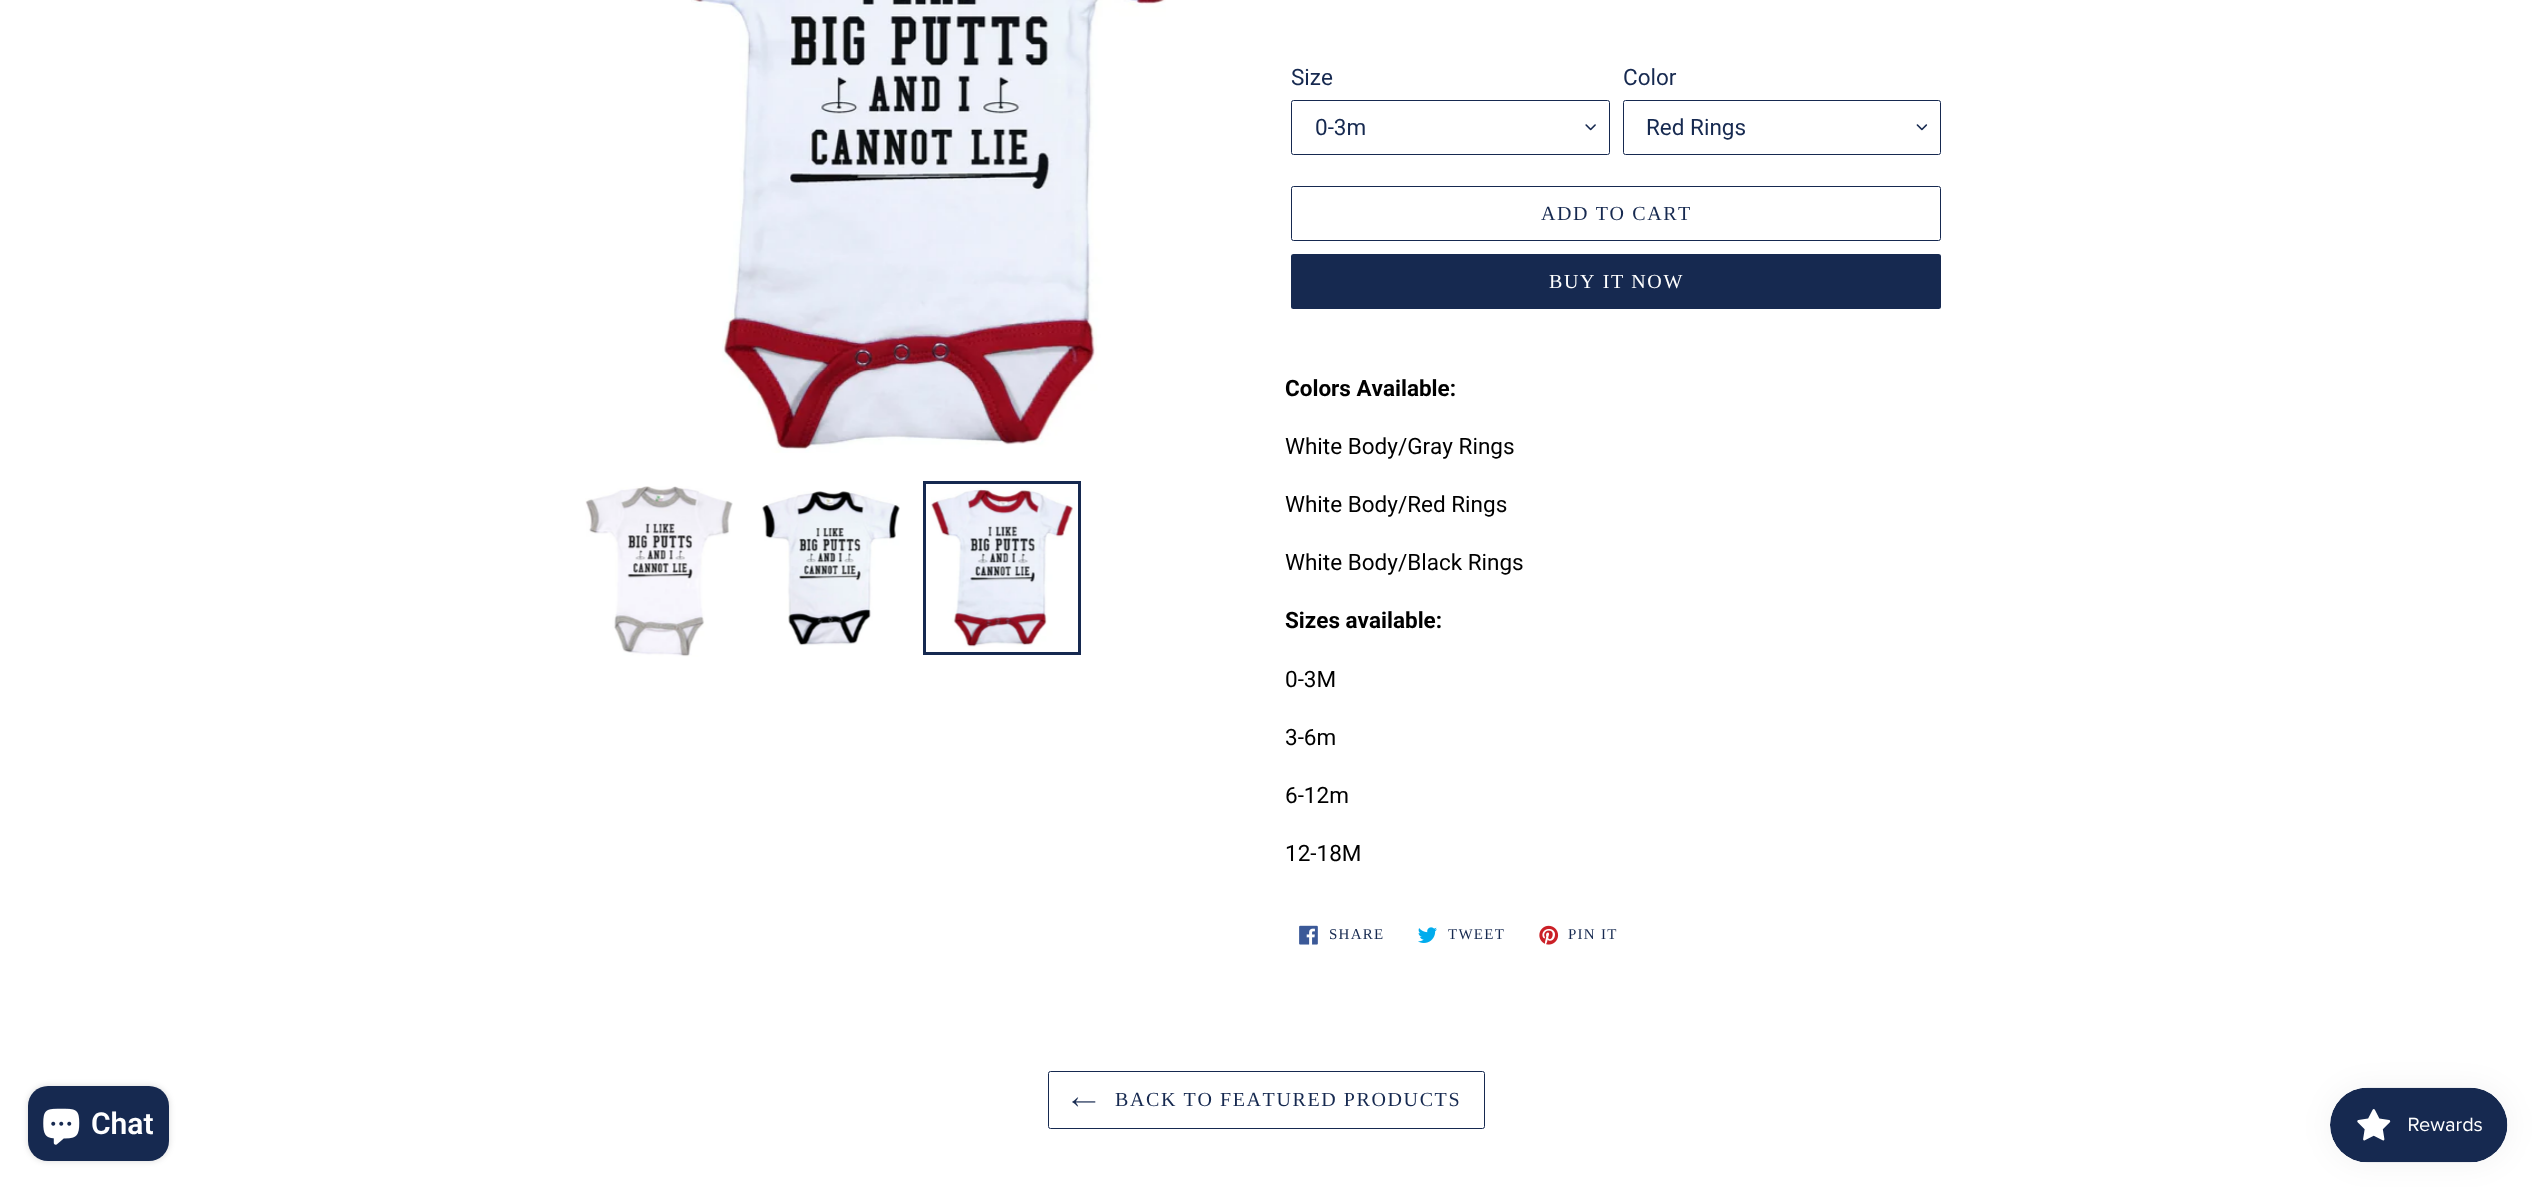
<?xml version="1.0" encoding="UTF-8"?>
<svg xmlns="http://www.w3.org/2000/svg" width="2532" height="1187">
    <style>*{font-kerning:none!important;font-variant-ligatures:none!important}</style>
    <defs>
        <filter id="blur1" x="-50%" y="-200%" width="200%" height="500%"><feGaussianBlur stdDeviation="3"/></filter>
        <filter id="blur2" x="-50%" y="-200%" width="200%" height="500%"><feGaussianBlur stdDeviation="15.5"/></filter>
    </defs>
    <rect width="100%" height="100%" fill="#FFFFFF"/>
    <rect x="28" y="1086" width="141" height="75" rx="20" fill="#000000" fill-opacity="0.15" filter="url(#blur1)"/>
    <rect x="28" y="1086" width="141" height="75" rx="20" fill="#162950"/>
    <image x="43" y="1108" width="37" height="37" href="img_01.png"/>
    <text x="91" y="1134" font-family="Roboto" font-size="30" font-weight="600" fill="#FFFFFF">Chat</text>
    <image x="691" y="0" width="475" height="453" href="img_02.png"/>
    <image x="585" y="486" width="148" height="171" href="img_03.png"/>
    <image x="762" y="491" width="138" height="155" href="img_04.png"/>
    <rect x="924.5" y="482.5" width="155" height="171" fill="none" stroke="#162950" stroke-width="3"/>
    <image x="931" y="488" width="145" height="159" href="img_05.png"/>
    <text x="1291" y="85" font-family="Roboto" font-size="22.5" fill="#162950">Size</text>
    <image x="1585" y="124" width="11" height="7" href="img_06.png"/>
    <rect x="1291.5" y="100.5" width="318" height="54" rx="2" fill="none" stroke="#162950"/>
    <text x="1315" y="135" font-family="Roboto" font-size="22.5" fill="#162950">0-3m</text>
    <text x="1623" y="85" font-family="Roboto" font-size="22.5" fill="#162950">Color</text>
    <image x="1916" y="124" width="12" height="7" href="img_07.png"/>
    <rect x="1623.5" y="100.5" width="317" height="54" rx="2" fill="none" stroke="#162950"/>
    <text x="1646" y="135" font-family="Roboto" font-size="22.5" fill="#162950">Red Rings</text>
    <rect x="1291.5" y="186.5" width="649" height="54" rx="2" fill="none" stroke="#162950"/>
    <text x="1541" y="220" font-family="Liberation Serif" font-size="20" letter-spacing="1.6" fill="#162950">ADD TO CART</text>
    <rect x="1291" y="254" width="650" height="55" rx="2.5" fill="#162950"/>
    <text x="1549" y="288" font-family="Liberation Serif" font-size="20" letter-spacing="1.6" fill="#FFFFFF">BUY IT NOW</text>
    <text x="1285" y="396" font-family="Roboto" font-size="22.5" font-weight="700" fill="#000000">Colors Available:</text>
    <text x="1285" y="454" font-family="Roboto" font-size="22.5" fill="#000000">White Body/Gray Rings</text>
    <text x="1285" y="512" font-family="Roboto" font-size="22.5" fill="#000000">White Body/Red Rings</text>
    <text x="1285" y="570" font-family="Roboto" font-size="22.5" fill="#000000">White Body/Black Rings</text>
    <text x="1285" y="628" font-family="Roboto" font-size="22.5" font-weight="700" fill="#000000">Sizes available:</text>
    <text x="1285" y="687" font-family="Roboto" font-size="22.5" fill="#000000">0-3M</text>
    <text x="1285" y="745" font-family="Roboto" font-size="22.5" fill="#000000">3-6m</text>
    <text x="1285" y="803" font-family="Roboto" font-size="22.5" fill="#000000">6-12m</text>
    <text x="1285" y="861" font-family="Roboto" font-size="22.5" fill="#000000">12-18M</text>
    <image x="1299" y="925" width="19" height="20" href="img_08.png"/>
    <text x="1329" y="939" font-family="Liberation Serif" font-size="15" letter-spacing="1.25" fill="#162950">SHARE</text>
    <image x="1418" y="927" width="19" height="16" href="img_09.png"/>
    <text x="1448" y="939" font-family="Liberation Serif" font-size="15" letter-spacing="1.25" fill="#162950">TWEET</text>
    <image x="1539" y="925" width="20" height="20" href="img_10.png"/>
    <text x="1568" y="939" font-family="Liberation Serif" font-size="15" letter-spacing="1.25" fill="#162950">PIN IT</text>
    <rect x="1048.5" y="1071.5" width="436" height="57" rx="2" fill="none" stroke="#162950"/>
    <image x="1072" y="1097" width="24" height="10" href="img_11.png"/>
    <text x="1115" y="1106" font-family="Liberation Serif" font-size="20" letter-spacing="1.6" fill="#162950">BACK TO FEATURED PRODUCTS</text>
    <rect x="2330" y="1088" width="178" height="75" rx="37.5" fill="#000000" fill-opacity="0.05" filter="url(#blur2)"/>
    <image x="2330" y="1087" width="178" height="76" href="img_12.png"/>
</svg>
